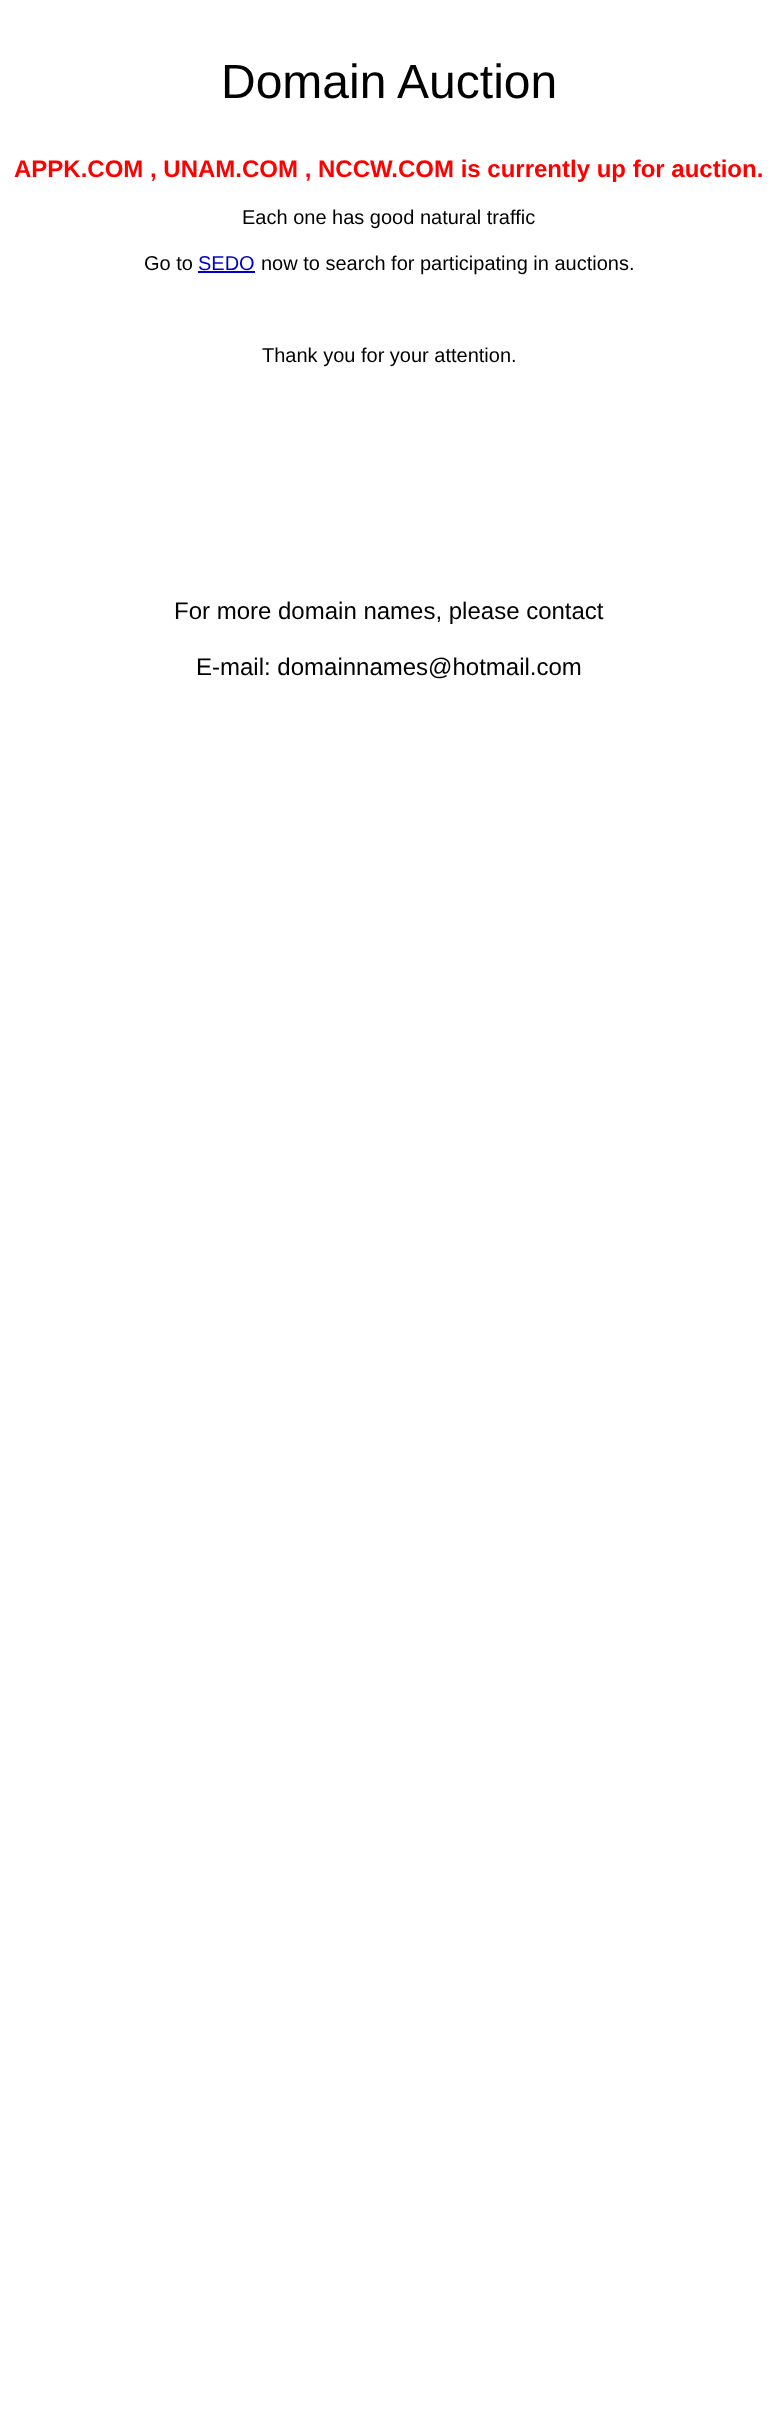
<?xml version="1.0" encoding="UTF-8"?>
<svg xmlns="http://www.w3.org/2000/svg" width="778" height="2424">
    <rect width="100%" height="100%" fill="#FFFFFF"/>
    <text x="221" y="98" font-family="Liberation Sans" font-size="48" fill="#000000">Domain Auction</text>
    <text x="14" y="177" font-family="Liberation Sans" font-size="24" font-weight="700" fill="#FF0000">APPK.COM , UNAM.COM , NCCW.COM is currently up for auction.</text>
    <text x="242" y="224" font-family="Liberation Sans" font-size="20" fill="#000000">Each one has good natural traffic</text>
    <text x="144" y="270" font-family="Liberation Sans" font-size="20" fill="#000000">Go to</text>
    <text x="198" y="270" font-family="Liberation Sans" font-size="20" fill="#0000CC">SEDO</text>
    <rect x="198" y="271" width="57" height="2" fill="#0000CC"/>
    <text x="261" y="270" font-family="Liberation Sans" font-size="20" fill="#000000">now to search for participating in auctions.</text>
    <text x="262" y="362" font-family="Liberation Sans" font-size="20" fill="#000000">Thank you for your attention.</text>
    <text x="174" y="619" font-family="Liberation Sans" font-size="24" fill="#000000">For more domain names, please contact</text>
    <text x="196" y="675" font-family="Liberation Sans" font-size="24" fill="#000000">E-mail: domainnames@hotmail.com</text>
</svg>
